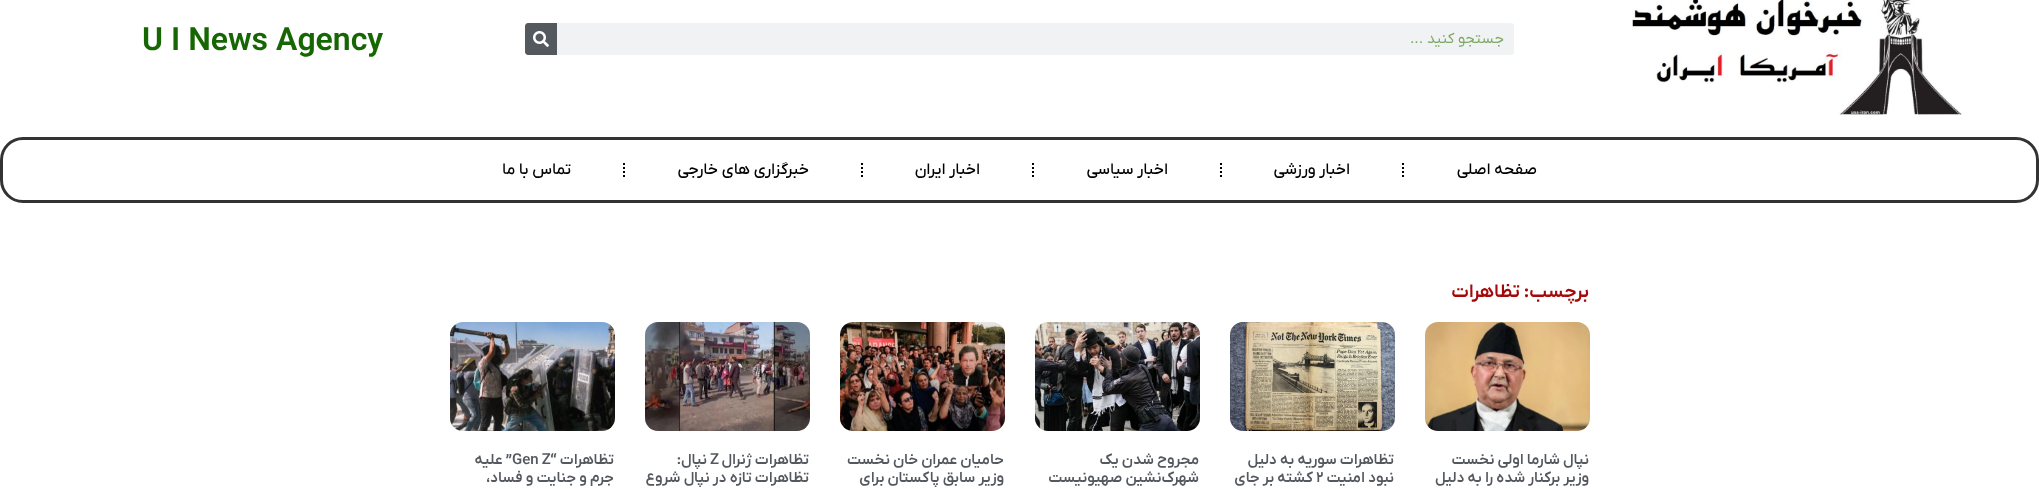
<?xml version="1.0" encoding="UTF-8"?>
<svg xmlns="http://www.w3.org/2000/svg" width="2039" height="489">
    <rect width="100%" height="100%" fill="#FFFFFF"/>
    <image x="1632" y="0" width="330" height="115" href="img_01.png"/>
    <rect x="525" y="23" width="989" height="32" rx="3" fill="#F1F2F3"/>
    <text x="1504" y="43" font-family="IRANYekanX" font-size="15" direction="rtl" fill="#7BA865">جستجو کنید ...</text>
    <path d="M 528 23 H 557 V 55 H 528 C 526.5 55 525 53.5 525 52 V 26 C 525 24.5 526.5 23 528 23 Z" fill="#54595F"/>
    <image x="533" y="31" width="16" height="16" href="img_02.png"/>
    <text x="142" y="50" font-family="Roboto" font-size="32" font-weight="600" fill="#166703">U I News Agency</text>
    <rect x="1.5" y="138.5" width="2036" height="63" rx="21.5" fill="none" stroke="#333333" stroke-width="3"/>
    <text x="1537" y="174" font-family="IRANYekanX" font-size="16" font-weight="500" direction="rtl" fill="#000000">صفحه اصلی</text>
    <path d="M 1403 163 V 165 M 1403 167 V 169 M 1403 171 V 173 M 1403 175 V 177" fill="none" stroke="#000000" stroke-width="2"/>
    <text x="1350" y="174" font-family="IRANYekanX" font-size="16" font-weight="500" direction="rtl" fill="#000000">اخبار ورزشی</text>
    <path d="M 1221 163 V 165 M 1221 167 V 169 M 1221 171 V 173 M 1221 175 V 177" fill="none" stroke="#000000" stroke-width="2"/>
    <text x="1168" y="174" font-family="IRANYekanX" font-size="16" font-weight="500" direction="rtl" fill="#000000">اخبار سیاسی</text>
    <path d="M 1033 163 V 165 M 1033 167 V 169 M 1033 171 V 173 M 1033 175 V 177" fill="none" stroke="#000000" stroke-width="2"/>
    <text x="980" y="174" font-family="IRANYekanX" font-size="16" font-weight="500" direction="rtl" fill="#000000">اخبار ایران</text>
    <path d="M 862 163 V 165 M 862 167 V 169 M 862 171 V 173 M 862 175 V 177" fill="none" stroke="#000000" stroke-width="2"/>
    <text x="809" y="174" font-family="IRANYekanX" font-size="16" font-weight="500" direction="rtl" fill="#000000">خبرگزاری های خارجی</text>
    <path d="M 624 163 V 165 M 624 167 V 169 M 624 171 V 173 M 624 175 V 177" fill="none" stroke="#000000" stroke-width="2"/>
    <text x="571" y="174" font-family="IRANYekanX" font-size="16" font-weight="500" direction="rtl" fill="#000000">تماس با ما</text>
    <text x="1589" y="297" font-family="IRANYekanX" font-size="19" font-weight="600" direction="rtl" fill="#A40808">برچسب: تظاهرات</text>
    <image x="1425" y="322" width="165" height="109" href="img_03.png"/>
    <text font-family="IRANYekanX" font-size="15" font-weight="600" direction="rtl" fill="#54595F">
        <tspan x="1589" y="464">نپال شارما اولی نخست</tspan>
        <tspan x="1589" y="482">وزیر برکنار شده را به دلیل</tspan>
    </text>
    <image x="1230" y="322" width="165" height="109" href="img_04.png"/>
    <text font-family="IRANYekanX" font-size="15" font-weight="600" direction="rtl" fill="#54595F">
        <tspan x="1394" y="464">تظاهرات سوریه به دلیل</tspan>
        <tspan x="1394" y="482">نبود امنیت</tspan>
    </text>
    <text x="1316" y="482" font-family="IRANYekanX" font-size="15" font-weight="600" fill="#54595F">۲</text>
    <text x="1313" y="482" font-family="IRANYekanX" font-size="15" font-weight="600" direction="rtl" fill="#54595F">کشته بر جای</text>
    <image x="1035" y="322" width="165" height="109" href="img_05.png"/>
    <text font-family="IRANYekanX" font-size="15" font-weight="600" direction="rtl" fill="#54595F">
        <tspan x="1199" y="464">مجروح شدن یک</tspan>
        <tspan x="1199" y="482">شهرک‌نشین صهیونیست</tspan>
    </text>
    <image x="840" y="322" width="165" height="109" href="img_06.png"/>
    <text font-family="IRANYekanX" font-size="15" font-weight="600" direction="rtl" fill="#54595F">
        <tspan x="1004" y="464">حامیان عمران خان نخست</tspan>
        <tspan x="1004" y="482">وزیر سابق پاکستان برای</tspan>
    </text>
    <image x="645" y="322" width="165" height="109" href="img_07.png"/>
    <text x="809" y="464" font-family="IRANYekanX" font-size="15" font-weight="600" direction="rtl" fill="#54595F">تظاهرات ژنرال</text>
    <text x="710" y="464" font-family="IRANYekanX" font-size="15" font-weight="600" fill="#54595F">Z</text>
    <text x="707" y="464" font-family="IRANYekanX" font-size="15" font-weight="600" direction="rtl" fill="#54595F">نپال:</text>
    <text x="809" y="482" font-family="IRANYekanX" font-size="15" font-weight="600" direction="rtl" fill="#54595F">تظاهرات تازه در نپال شروع</text>
    <image x="450" y="322" width="165" height="109" href="img_08.png"/>
    <text x="614" y="464" font-family="IRANYekanX" font-size="15" font-weight="600" direction="rtl" fill="#54595F">تظاهرات “</text>
    <text x="512" y="464" font-family="IRANYekanX" font-size="15" font-weight="600" fill="#54595F">Gen Z</text>
    <text x="512" y="464" font-family="IRANYekanX" font-size="15" font-weight="600" direction="rtl" fill="#54595F">” علیه</text>
    <text x="614" y="482" font-family="IRANYekanX" font-size="15" font-weight="600" direction="rtl" fill="#54595F">جرم و جنایت و فساد،</text>
</svg>
